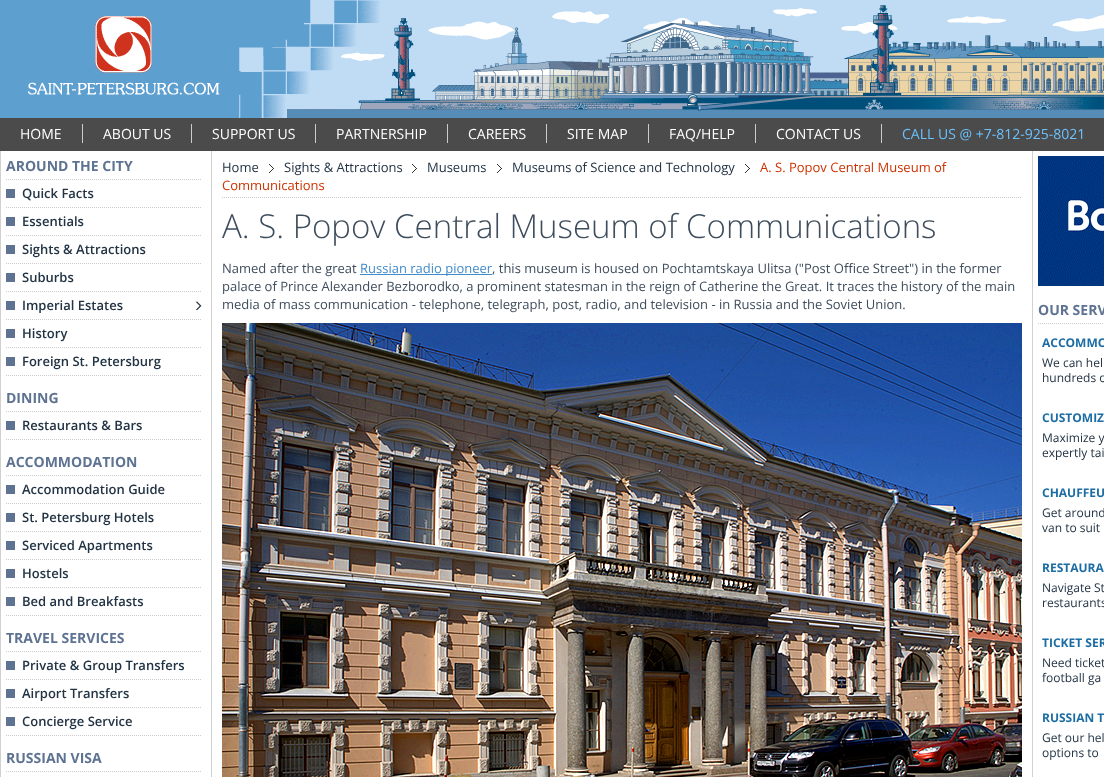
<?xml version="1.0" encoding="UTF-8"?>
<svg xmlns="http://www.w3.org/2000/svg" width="1104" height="777">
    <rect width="100%" height="100%" fill="#4B4B4B"/>
    <image x="0" y="0" width="1104" height="118" href="img_01.png"/>
    <text x="20" y="139" font-family="Open Sans" font-size="14" fill="#FFFFFF">HOME</text>
    <rect x="82" y="124" width="1" height="19" fill="#CCCCCC"/>
    <text x="103" y="139" font-family="Open Sans" font-size="14" fill="#FFFFFF">ABOUT US</text>
    <rect x="191" y="124" width="1" height="19" fill="#CCCCCC"/>
    <text x="212" y="139" font-family="Open Sans" font-size="14" fill="#FFFFFF">SUPPORT US</text>
    <rect x="315" y="124" width="1" height="19" fill="#CCCCCC"/>
    <text x="336" y="139" font-family="Open Sans" font-size="14" fill="#FFFFFF">PARTNERSHIP</text>
    <rect x="447" y="124" width="1" height="19" fill="#CCCCCC"/>
    <text x="468" y="139" font-family="Open Sans" font-size="14" fill="#FFFFFF">CAREERS</text>
    <rect x="546" y="124" width="1" height="19" fill="#CCCCCC"/>
    <text x="567" y="139" font-family="Open Sans" font-size="14" fill="#FFFFFF">SITE MAP</text>
    <rect x="648" y="124" width="1" height="19" fill="#CCCCCC"/>
    <text x="669" y="139" font-family="Open Sans" font-size="14" fill="#FFFFFF">FAQ/HELP</text>
    <rect x="755" y="124" width="1" height="19" fill="#CCCCCC"/>
    <text x="776" y="139" font-family="Open Sans" font-size="14" fill="#FFFFFF">CONTACT US</text>
    <rect x="881" y="124" width="1" height="19" fill="#CCCCCC"/>
    <text x="902" y="139" font-family="Open Sans" font-size="14" fill="#6CC2FD">CALL US @ +7-812-925-8021</text>
    <rect x="1" y="151" width="1103" height="626" fill="#FFFFFF"/>
    <rect x="0" y="151" width="1" height="626" fill="#D0D0D0"/>
    <path d="M 6 179.5 H 201" fill="none" stroke="#CCCCCC" stroke-dasharray="1 1"/>
    <text x="6" y="171" font-family="Open Sans" font-size="14" font-weight="700" fill="#5E7392">AROUND THE CITY</text>
    <path d="M 6 207.5 H 201" fill="none" stroke="#CCCCCC" stroke-dasharray="1 1"/>
    <rect x="6" y="189" width="9" height="9" fill="#5E7392"/>
    <text x="22" y="198" font-family="Open Sans" font-size="13" font-weight="600" fill="#223344">Quick Facts</text>
    <path d="M 6 235.5 H 201" fill="none" stroke="#CCCCCC" stroke-dasharray="1 1"/>
    <rect x="6" y="217" width="9" height="9" fill="#5E7392"/>
    <text x="22" y="226" font-family="Open Sans" font-size="13" font-weight="600" fill="#223344">Essentials</text>
    <path d="M 6 263.5 H 201" fill="none" stroke="#CCCCCC" stroke-dasharray="1 1"/>
    <rect x="6" y="245" width="9" height="9" fill="#5E7392"/>
    <text x="22" y="254" font-family="Open Sans" font-size="13" font-weight="600" fill="#223344">Sights &amp; Attractions</text>
    <path d="M 6 291.5 H 201" fill="none" stroke="#CCCCCC" stroke-dasharray="1 1"/>
    <rect x="6" y="273" width="9" height="9" fill="#5E7392"/>
    <text x="22" y="282" font-family="Open Sans" font-size="13" font-weight="600" fill="#223344">Suburbs</text>
    <path d="M 6 319.5 H 201" fill="none" stroke="#CCCCCC" stroke-dasharray="1 1"/>
    <rect x="6" y="301" width="9" height="9" fill="#5E7392"/>
    <text x="22" y="310" font-family="Open Sans" font-size="13" font-weight="600" fill="#223344">Imperial Estates</text>
    <image x="196" y="301" width="6" height="10" href="img_02.png"/>
    <path d="M 6 347.5 H 201" fill="none" stroke="#CCCCCC" stroke-dasharray="1 1"/>
    <rect x="6" y="329" width="9" height="9" fill="#5E7392"/>
    <text x="22" y="338" font-family="Open Sans" font-size="13" font-weight="600" fill="#223344">History</text>
    <path d="M 6 375.5 H 201" fill="none" stroke="#CCCCCC" stroke-dasharray="1 1"/>
    <rect x="6" y="357" width="9" height="9" fill="#5E7392"/>
    <text x="22" y="366" font-family="Open Sans" font-size="13" font-weight="600" fill="#223344">Foreign St. Petersburg</text>
    <path d="M 6 411.5 H 201" fill="none" stroke="#CCCCCC" stroke-dasharray="1 1"/>
    <text x="6" y="403" font-family="Open Sans" font-size="14" font-weight="700" fill="#5E7392">DINING</text>
    <path d="M 6 439.5 H 201" fill="none" stroke="#CCCCCC" stroke-dasharray="1 1"/>
    <rect x="6" y="421" width="9" height="9" fill="#5E7392"/>
    <text x="22" y="430" font-family="Open Sans" font-size="13" font-weight="600" fill="#223344">Restaurants &amp; Bars</text>
    <path d="M 6 475.5 H 201" fill="none" stroke="#CCCCCC" stroke-dasharray="1 1"/>
    <text x="6" y="467" font-family="Open Sans" font-size="14" font-weight="700" fill="#5E7392">ACCOMMODATION</text>
    <path d="M 6 503.5 H 201" fill="none" stroke="#CCCCCC" stroke-dasharray="1 1"/>
    <rect x="6" y="485" width="9" height="9" fill="#5E7392"/>
    <text x="22" y="494" font-family="Open Sans" font-size="13" font-weight="600" fill="#223344">Accommodation Guide</text>
    <path d="M 6 531.5 H 201" fill="none" stroke="#CCCCCC" stroke-dasharray="1 1"/>
    <rect x="6" y="513" width="9" height="9" fill="#5E7392"/>
    <text x="22" y="522" font-family="Open Sans" font-size="13" font-weight="600" fill="#223344">St. Petersburg Hotels</text>
    <path d="M 6 559.5 H 201" fill="none" stroke="#CCCCCC" stroke-dasharray="1 1"/>
    <rect x="6" y="541" width="9" height="9" fill="#5E7392"/>
    <text x="22" y="550" font-family="Open Sans" font-size="13" font-weight="600" fill="#223344">Serviced Apartments</text>
    <path d="M 6 587.5 H 201" fill="none" stroke="#CCCCCC" stroke-dasharray="1 1"/>
    <rect x="6" y="569" width="9" height="9" fill="#5E7392"/>
    <text x="22" y="578" font-family="Open Sans" font-size="13" font-weight="600" fill="#223344">Hostels</text>
    <path d="M 6 615.5 H 201" fill="none" stroke="#CCCCCC" stroke-dasharray="1 1"/>
    <rect x="6" y="597" width="9" height="9" fill="#5E7392"/>
    <text x="22" y="606" font-family="Open Sans" font-size="13" font-weight="600" fill="#223344">Bed and Breakfasts</text>
    <path d="M 6 651.5 H 201" fill="none" stroke="#CCCCCC" stroke-dasharray="1 1"/>
    <text x="6" y="643" font-family="Open Sans" font-size="14" font-weight="700" fill="#5E7392">TRAVEL SERVICES</text>
    <path d="M 6 679.5 H 201" fill="none" stroke="#CCCCCC" stroke-dasharray="1 1"/>
    <rect x="6" y="661" width="9" height="9" fill="#5E7392"/>
    <text x="22" y="670" font-family="Open Sans" font-size="13" font-weight="600" fill="#223344">Private &amp; Group Transfers</text>
    <path d="M 6 707.5 H 201" fill="none" stroke="#CCCCCC" stroke-dasharray="1 1"/>
    <rect x="6" y="689" width="9" height="9" fill="#5E7392"/>
    <text x="22" y="698" font-family="Open Sans" font-size="13" font-weight="600" fill="#223344">Airport Transfers</text>
    <path d="M 6 735.5 H 201" fill="none" stroke="#CCCCCC" stroke-dasharray="1 1"/>
    <rect x="6" y="717" width="9" height="9" fill="#5E7392"/>
    <text x="22" y="726" font-family="Open Sans" font-size="13" font-weight="600" fill="#223344">Concierge Service</text>
    <path d="M 6 771.5 H 201" fill="none" stroke="#CCCCCC" stroke-dasharray="1 1"/>
    <text x="6" y="763" font-family="Open Sans" font-size="14" font-weight="700" fill="#5E7392">RUSSIAN VISA</text>
    <rect x="1032" y="151" width="1" height="626" fill="#D0D0D0"/>
    <rect x="211" y="151" width="1" height="626" fill="#D0D0D0"/>
    <path d="M 222 197.5 H 1022" fill="none" stroke="#CCCCCC" stroke-dasharray="1 1"/>
    <text x="222" y="172" font-family="Open Sans" font-size="13" fill="#223344">Home</text>
    <image x="269" y="164" width="5" height="9" href="img_03.png"/>
    <text x="284" y="172" font-family="Open Sans" font-size="13" fill="#223344">Sights &amp; Attractions</text>
    <image x="412" y="164" width="5" height="9" href="img_03.png"/>
    <text x="427" y="172" font-family="Open Sans" font-size="13" fill="#223344">Museums</text>
    <image x="497" y="164" width="5" height="9" href="img_03.png"/>
    <text x="512" y="172" font-family="Open Sans" font-size="13" fill="#223344">Museums of Science and Technology</text>
    <image x="745" y="164" width="5" height="9" href="img_03.png"/>
    <text x="760" y="172" font-family="Open Sans" font-size="13" fill="#CC3300">A. S. Popov Central Museum of</text>
    <text x="222" y="190" font-family="Open Sans" font-size="13" fill="#CC3300">Communications</text>
    <text x="222" y="238" font-family="Open Sans" font-size="33" font-weight="300" fill="#3E4D5C">A. S. Popov Central Museum of Communications</text>
    <text x="222" y="273" font-family="Open Sans" font-size="13" fill="#3E4D5C">Named after the great</text>
    <rect x="360" y="274" width="132" height="1" fill="#428BCA"/>
    <text x="360" y="273" font-family="Open Sans" font-size="13" fill="#428BCA">Russian radio pioneer</text>
    <text x="492" y="273" font-family="Open Sans" font-size="13" fill="#3E4D5C">, this museum is housed on Pochtamtskaya Ulitsa ("Post Office Street") in the former</text>
    <text font-family="Open Sans" font-size="13" fill="#3E4D5C">
        <tspan x="222" y="291">palace of Prince Alexander Bezborodko, a prominent statesman in the reign of Catherine the Great. It traces the history of the main</tspan>
        <tspan x="222" y="309">media of mass communication - telephone, telegraph, post, radio, and television - in Russia and the Soviet Union.</tspan>
    </text>
    <image x="222" y="323" width="800" height="454" href="img_04.png"/>
    <image x="1038" y="156" width="66" height="130" href="img_05.png"/>
    <path d="M 1038 323.5 H 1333" fill="none" stroke="#CCCCCC" stroke-dasharray="1 1"/>
    <text x="1038" y="315" font-family="Open Sans" font-size="14" font-weight="700" fill="#5E7392">OUR SERV</text>
    <text x="1042" y="347" font-family="Open Sans" font-size="12" font-weight="700" fill="#1C6DA4">ACCOMMO</text>
    <text font-family="Open Sans" font-size="12" fill="#223344">
        <tspan x="1042" y="367">We can hel</tspan>
        <tspan x="1042" y="382">hundreds o</tspan>
    </text>
    <text x="1042" y="422" font-family="Open Sans" font-size="12" font-weight="700" fill="#1C6DA4">CUSTOMIZ</text>
    <text font-family="Open Sans" font-size="12" fill="#223344">
        <tspan x="1042" y="442">Maximize y</tspan>
        <tspan x="1042" y="457">expertly tai</tspan>
    </text>
    <text x="1042" y="497" font-family="Open Sans" font-size="12" font-weight="700" fill="#1C6DA4">CHAUFFEU</text>
    <text font-family="Open Sans" font-size="12" fill="#223344">
        <tspan x="1042" y="517">Get around</tspan>
        <tspan x="1042" y="532">van to suit</tspan>
    </text>
    <text x="1042" y="572" font-family="Open Sans" font-size="12" font-weight="700" fill="#1C6DA4">RESTAURA</text>
    <text font-family="Open Sans" font-size="12" fill="#223344">
        <tspan x="1042" y="592">Navigate St</tspan>
        <tspan x="1042" y="607">restaurants</tspan>
    </text>
    <text x="1042" y="647" font-family="Open Sans" font-size="12" font-weight="700" fill="#1C6DA4">TICKET SER</text>
    <text font-family="Open Sans" font-size="12" fill="#223344">
        <tspan x="1042" y="667">Need ticket</tspan>
        <tspan x="1042" y="682">football ga</tspan>
    </text>
    <text x="1042" y="722" font-family="Open Sans" font-size="12" font-weight="700" fill="#1C6DA4">RUSSIAN T</text>
    <text font-family="Open Sans" font-size="12" fill="#223344">
        <tspan x="1042" y="742">Get our hel</tspan>
        <tspan x="1042" y="757">options to</tspan>
    </text>
</svg>
